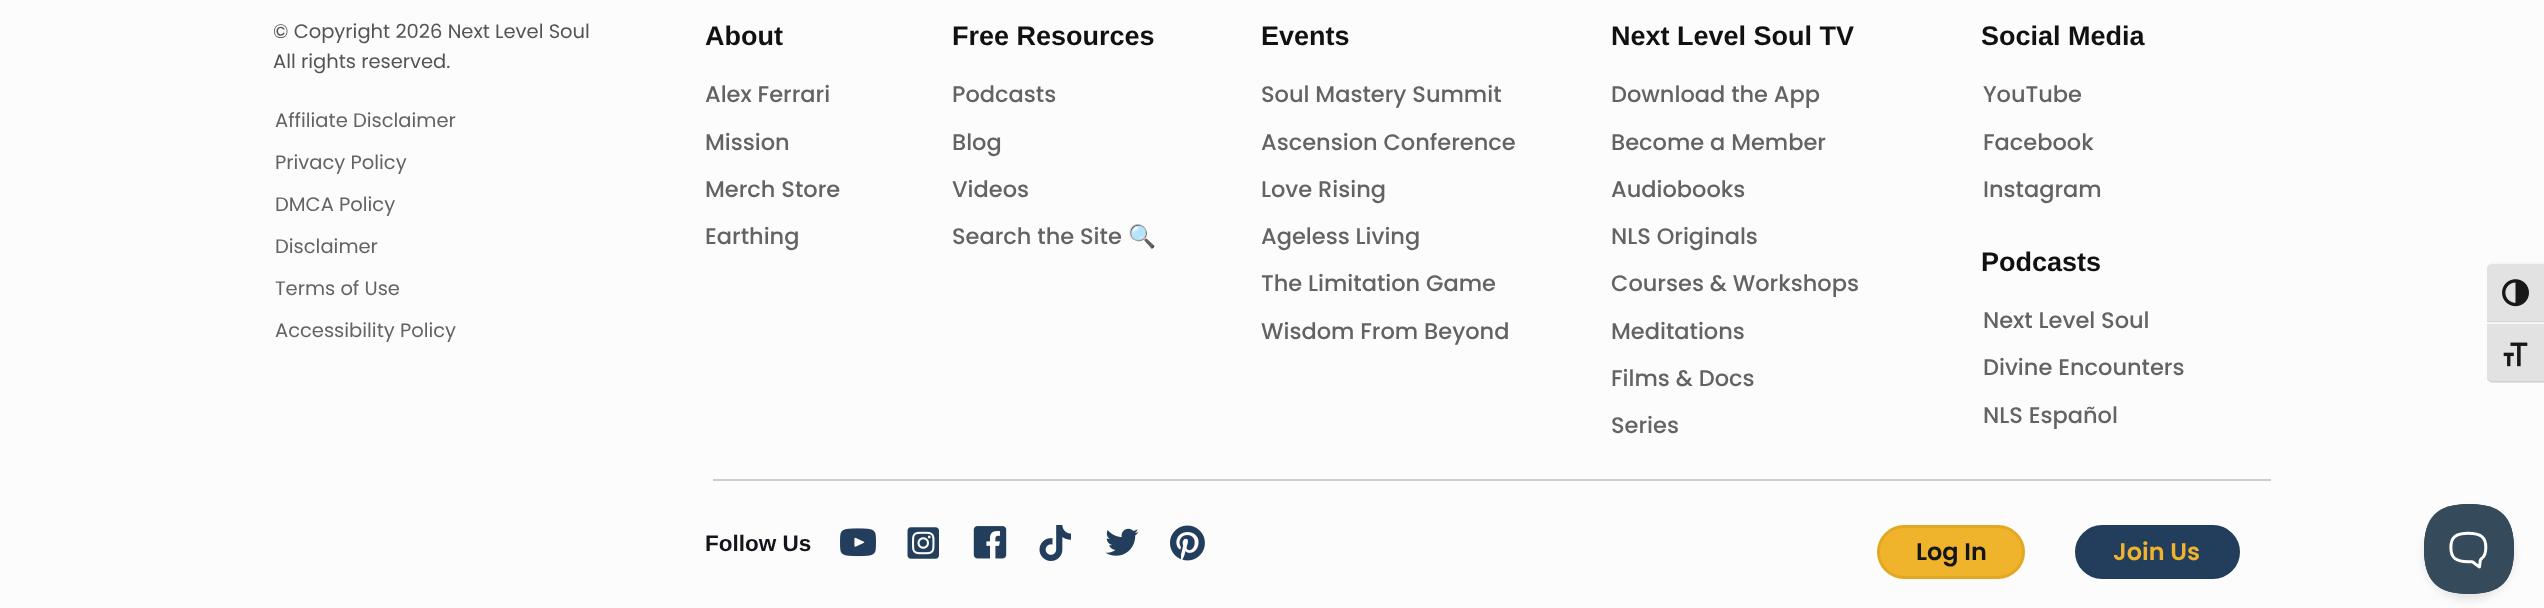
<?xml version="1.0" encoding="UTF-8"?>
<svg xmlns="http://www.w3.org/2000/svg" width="2544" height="608">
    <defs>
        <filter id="blur1" x="-50%" y="-200%" width="200%" height="500%"><feGaussianBlur stdDeviation="5"/></filter>
    </defs>
    <rect width="100%" height="100%" fill="#FCFCFC"/>
    <text font-family="Poppins" font-size="19.5" fill="#545454">
        <tspan x="273" y="38">© Copyright 2026 Next Level Soul</tspan>
        <tspan x="273" y="68">All rights reserved.</tspan>
    </text>
    <text x="275" y="127" font-family="Poppins" font-size="19.5" fill="#636363">Affiliate Disclaimer</text>
    <text x="275" y="169" font-family="Poppins" font-size="19.5" fill="#636363">Privacy Policy</text>
    <text x="275" y="211" font-family="Poppins" font-size="19.5" fill="#636363">DMCA Policy</text>
    <text x="275" y="253" font-family="Poppins" font-size="19.5" fill="#636363">Disclaimer</text>
    <text x="275" y="295" font-family="Poppins" font-size="19.5" fill="#636363">Terms of Use</text>
    <text x="275" y="337" font-family="Poppins" font-size="19.5" fill="#636363">Accessibility Policy</text>
    <text x="705" y="45" font-family="Liberation Sans" font-size="27" font-weight="700" fill="#111111">About</text>
    <text x="705" y="102" font-family="Poppins" font-size="22.5" font-weight="500" fill="#636363">Alex Ferrari</text>
    <text x="705" y="150" font-family="Poppins" font-size="22.5" font-weight="500" fill="#636363">Mission</text>
    <text x="705" y="197" font-family="Poppins" font-size="22.5" font-weight="500" fill="#636363">Merch Store</text>
    <text x="705" y="244" font-family="Poppins" font-size="22.5" font-weight="500" fill="#636363">Earthing</text>
    <text x="952" y="45" font-family="Liberation Sans" font-size="27" font-weight="700" fill="#111111">Free Resources</text>
    <text x="952" y="102" font-family="Poppins" font-size="22.5" font-weight="500" fill="#636363">Podcasts</text>
    <text x="952" y="150" font-family="Poppins" font-size="22.5" font-weight="500" fill="#636363">Blog</text>
    <text x="952" y="197" font-family="Poppins" font-size="22.5" font-weight="500" fill="#636363">Videos</text>
    <text x="952" y="244" font-family="Poppins" font-size="22.5" font-weight="500" fill="#636363">Search the Site</text>
    <text x="1128" y="244" font-family="Noto Color Emoji" font-size="22.5" fill="#636363">🔍</text>
    <text x="1261" y="45" font-family="Liberation Sans" font-size="27" font-weight="700" fill="#111111">Events</text>
    <text x="1261" y="102" font-family="Poppins" font-size="22.5" font-weight="500" fill="#636363">Soul Mastery Summit</text>
    <text x="1261" y="150" font-family="Poppins" font-size="22.5" font-weight="500" fill="#636363">Ascension Conference</text>
    <text x="1261" y="197" font-family="Poppins" font-size="22.5" font-weight="500" fill="#636363">Love Rising</text>
    <text x="1261" y="244" font-family="Poppins" font-size="22.5" font-weight="500" fill="#636363">Ageless Living</text>
    <text x="1261" y="291" font-family="Poppins" font-size="22.5" font-weight="500" fill="#636363">The Limitation Game</text>
    <text x="1261" y="339" font-family="Poppins" font-size="22.5" font-weight="500" fill="#636363">Wisdom From Beyond</text>
    <text x="1611" y="45" font-family="Liberation Sans" font-size="27" font-weight="700" fill="#111111">Next Level Soul TV</text>
    <text x="1611" y="102" font-family="Poppins" font-size="22.5" font-weight="500" fill="#636363">Download the App</text>
    <text x="1611" y="150" font-family="Poppins" font-size="22.5" font-weight="500" fill="#636363">Become a Member</text>
    <text x="1611" y="197" font-family="Poppins" font-size="22.5" font-weight="500" fill="#636363">Audiobooks</text>
    <text x="1611" y="244" font-family="Poppins" font-size="22.5" font-weight="500" fill="#636363">NLS Originals</text>
    <text x="1611" y="291" font-family="Poppins" font-size="22.5" font-weight="500" fill="#636363">Courses &amp; Workshops</text>
    <text x="1611" y="339" font-family="Poppins" font-size="22.5" font-weight="500" fill="#636363">Meditations</text>
    <text x="1611" y="386" font-family="Poppins" font-size="22.5" font-weight="500" fill="#636363">Films &amp; Docs</text>
    <text x="1611" y="433" font-family="Poppins" font-size="22.5" font-weight="500" fill="#636363">Series</text>
    <text x="1981" y="45" font-family="Liberation Sans" font-size="27" font-weight="700" fill="#111111">Social Media</text>
    <text x="1983" y="102" font-family="Poppins" font-size="22.5" font-weight="500" fill="#636363">YouTube</text>
    <text x="1983" y="150" font-family="Poppins" font-size="22.5" font-weight="500" fill="#636363">Facebook</text>
    <text x="1983" y="197" font-family="Poppins" font-size="22.5" font-weight="500" fill="#636363">Instagram</text>
    <text x="1981" y="271" font-family="Liberation Sans" font-size="27" font-weight="700" fill="#111111">Podcasts</text>
    <text x="1983" y="328" font-family="Poppins" font-size="22.5" font-weight="500" fill="#636363">Next Level Soul</text>
    <text x="1983" y="375" font-family="Poppins" font-size="22.5" font-weight="500" fill="#636363">Divine Encounters</text>
    <text x="1983" y="423" font-family="Poppins" font-size="22.5" font-weight="500" fill="#636363">NLS Español</text>
    <rect x="713" y="479" width="1558" height="2" fill="#CCCCCC"/>
    <text x="705" y="551" font-family="Liberation Sans" font-size="22.5" font-weight="700" fill="#14151A">Follow Us</text>
    <image x="840" y="528" width="36" height="29" href="img_01.png"/>
    <image x="907" y="527" width="32" height="32" href="img_02.png"/>
    <image x="973" y="526" width="34" height="33" href="img_03.png"/>
    <image x="1039" y="525" width="32" height="36" href="img_04.png"/>
    <image x="1105" y="528" width="34" height="28" href="img_05.png"/>
    <image x="1170" y="525" width="35" height="36" href="img_06.png"/>
    <rect x="1878.5" y="526.5" width="145" height="51" rx="25.5" fill="#EFB42B" stroke="#E3A81F" stroke-width="3"/>
    <text x="1916" y="560" font-family="Poppins" font-size="24" font-weight="600" fill="#14151A">Log In</text>
    <rect x="2076.5" y="526.5" width="162" height="51" rx="25.5" fill="#233E5C" stroke="#233E5C" stroke-width="3"/>
    <text x="2113" y="560" font-family="Poppins" font-size="24" font-weight="600" fill="#EFB42B">Join Us</text>
    <path d="M 2493 263 H 2544 V 323 H 2487 V 269 C 2487 265.5 2489.5 263 2493 263 Z" fill="#E2E2E2"/>
    <path d="M 2493 264 C 2490 264 2487 266 2487 268 C 2487 266 2489 263 2491 262 H 2544 V 264 Z" fill="#F5F5F5"/>
    <rect x="2487" y="321" width="57" height="1" fill="#D2D2D2"/>
    <image x="2502" y="279" width="27" height="28" href="img_07.png"/>
    <path d="M 2487 323 H 2544 V 383 H 2493 C 2489.5 383 2487 380.5 2487 377 Z" fill="#E2E2E2"/>
    <rect x="2487" y="322" width="57" height="2" fill="#F5F5F5"/>
    <path d="M 2544 382 V 381 H 2493 C 2490 381 2487 379 2487 376 C 2487 380 2490 382 2493 382 Z" fill="#D2D2D2"/>
    <image x="2503" y="342" width="25" height="25" href="img_08.png"/>
    <rect x="2424" y="510" width="90" height="90" rx="45" fill="#000000" fill-opacity="0.1" filter="url(#blur1)"/>
    <image x="2424" y="504" width="90" height="90" href="img_09.png"/>
</svg>
